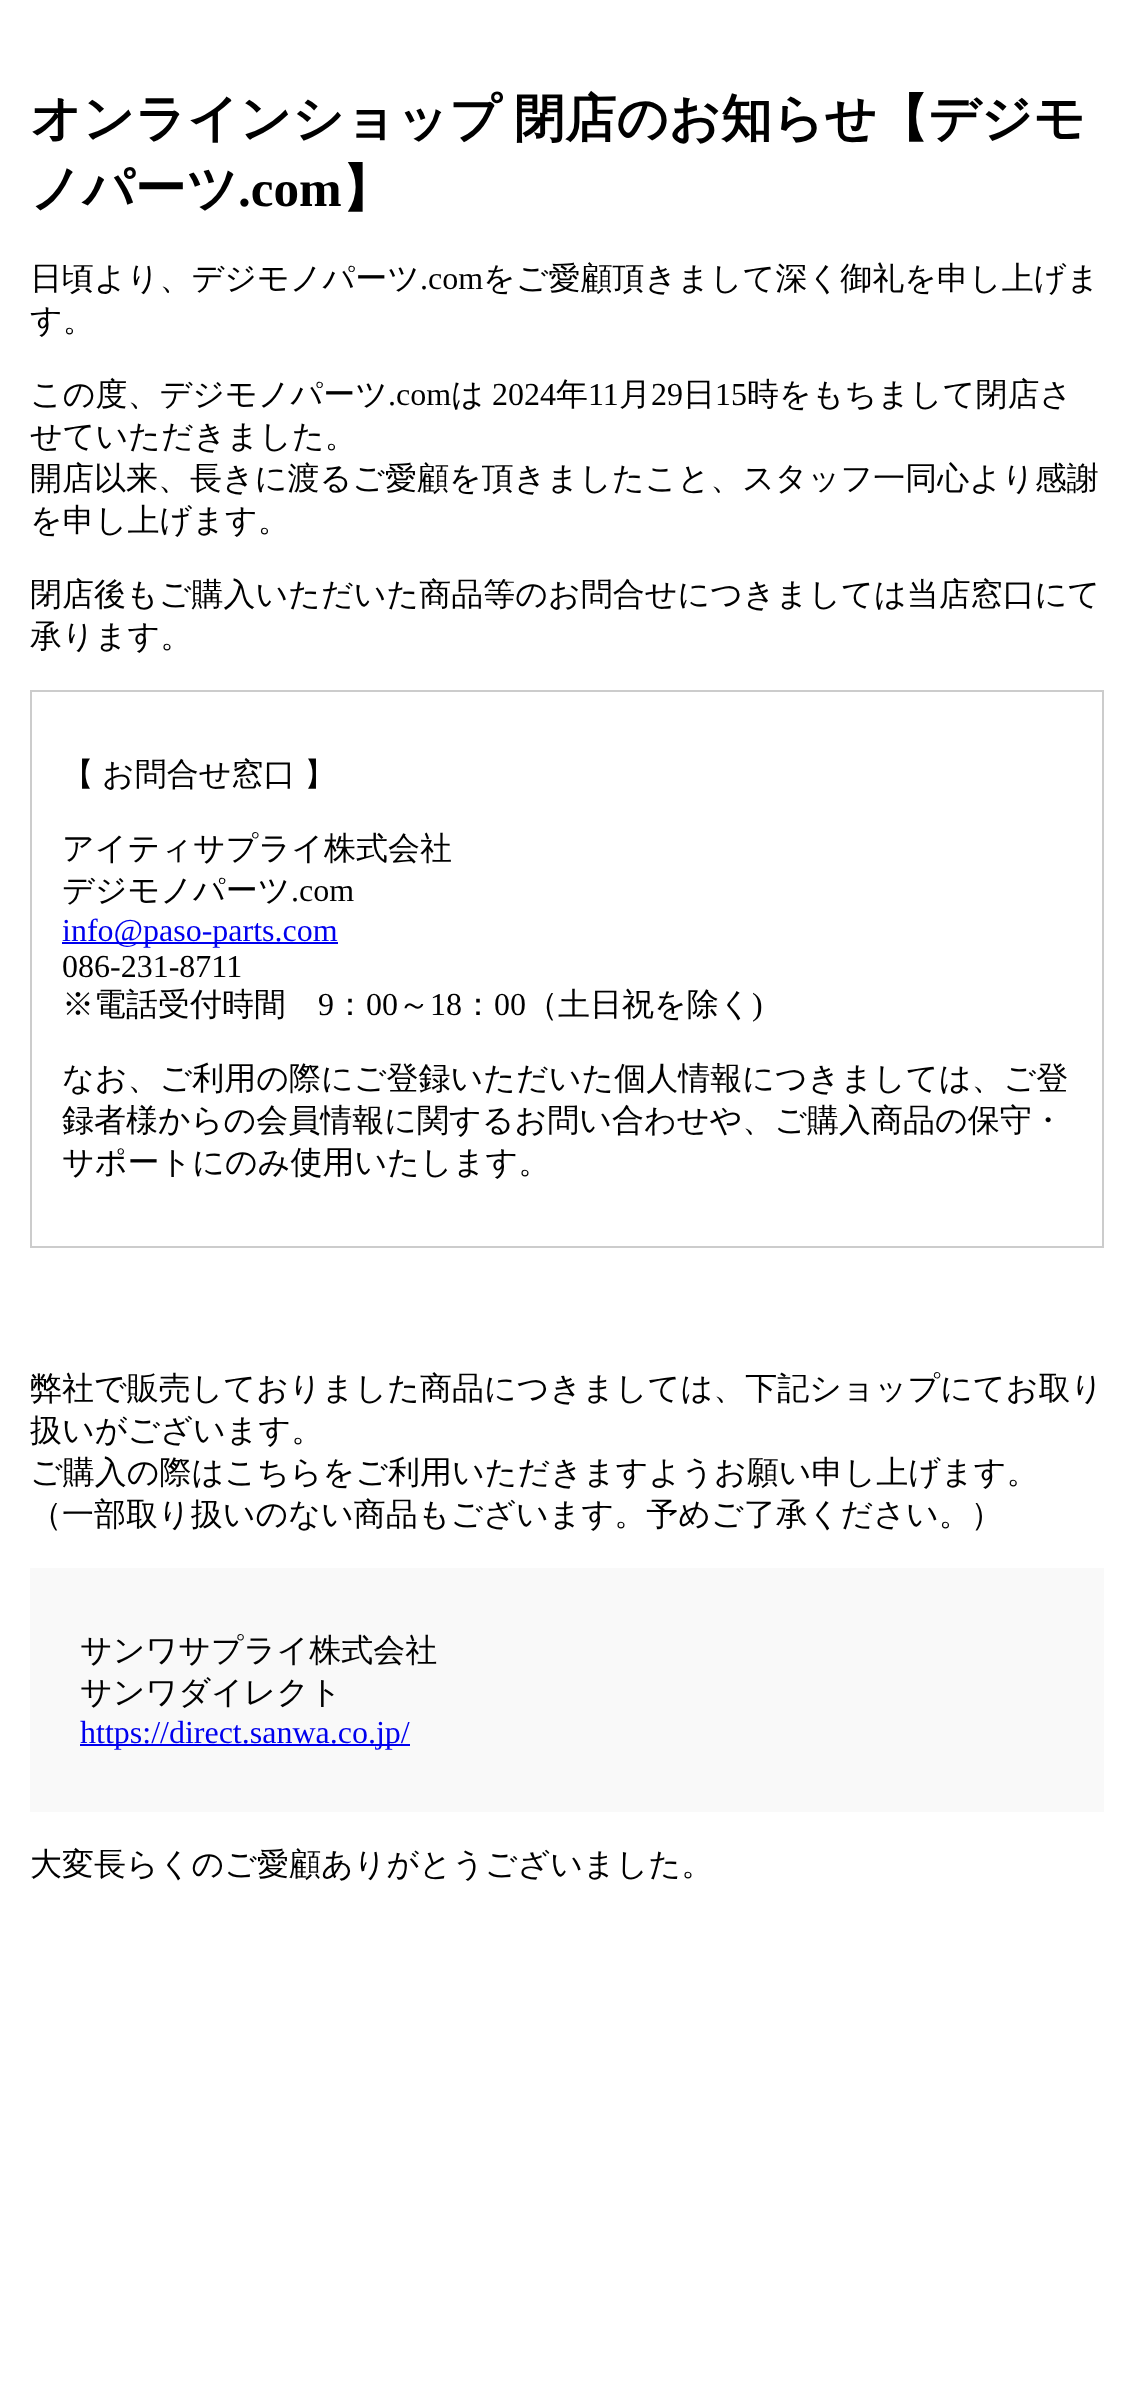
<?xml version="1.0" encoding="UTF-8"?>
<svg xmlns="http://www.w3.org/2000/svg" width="1133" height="2396">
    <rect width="100%" height="100%" fill="#FFFFFF"/>
    <text font-family="WenQuanYi Zen Hei" font-size="51.2" font-weight="700" fill="#000000">
        <tspan x="30" y="136" word-spacing="-3">オンラインショップ 閉店のお知らせ【デジモ</tspan>
        <tspan x="30" y="206">ノパーツ</tspan>
    </text>
    <text x="238" y="206" font-family="Liberation Serif" font-size="51.2" font-weight="700" fill="#000000">.com</text>
    <text x="342" y="206" font-family="WenQuanYi Zen Hei" font-size="51.2" font-weight="700" fill="#000000">】</text>
    <text x="30" y="289" font-family="WenQuanYi Zen Hei" font-size="32" font-weight="500" fill="#000000">日頃より、デジモノパーツ</text>
    <text x="420" y="289" font-family="Liberation Serif" font-size="32" fill="#000000">.com</text>
    <text x="483" y="289" font-family="WenQuanYi Zen Hei" font-size="32" font-weight="500" fill="#000000">をご愛顧頂きまして深く御礼を申し上げま</text>
    <text x="30" y="331" font-family="WenQuanYi Zen Hei" font-size="32" font-weight="500" fill="#000000">す。</text>
    <text x="30" y="405" font-family="WenQuanYi Zen Hei" font-size="32" font-weight="500" fill="#000000">この度、デジモノパーツ</text>
    <text x="388" y="405" font-family="Liberation Serif" font-size="32" fill="#000000">.com</text>
    <text x="451" y="405" font-family="WenQuanYi Zen Hei" font-size="32" font-weight="500" fill="#000000">は</text>
    <text x="492" y="405" font-family="Liberation Serif" font-size="32" fill="#000000">2024</text>
    <text x="556" y="405" font-family="WenQuanYi Zen Hei" font-size="32" font-weight="500" fill="#000000">年</text>
    <text x="588" y="405" font-family="Liberation Serif" font-size="32" fill="#000000">11</text>
    <text x="619" y="405" font-family="WenQuanYi Zen Hei" font-size="32" font-weight="500" fill="#000000">月</text>
    <text x="651" y="405" font-family="Liberation Serif" font-size="32" fill="#000000">29</text>
    <text x="683" y="405" font-family="WenQuanYi Zen Hei" font-size="32" font-weight="500" fill="#000000">日</text>
    <text x="715" y="405" font-family="Liberation Serif" font-size="32" fill="#000000">15</text>
    <text x="747" y="405" font-family="WenQuanYi Zen Hei" font-size="32" font-weight="500" fill="#000000">時をもちまして閉店さ</text>
    <text font-family="WenQuanYi Zen Hei" font-size="32" font-weight="500" fill="#000000">
        <tspan x="30" y="447">せていただきました。</tspan>
        <tspan x="30" y="489">開店以来、長きに渡るご愛顧を頂きましたこと、スタッフ一同心より感謝</tspan>
        <tspan x="30" y="531">を申し上げます。</tspan>
    </text>
    <text font-family="WenQuanYi Zen Hei" font-size="32" font-weight="500" fill="#000000">
        <tspan x="30" y="605">閉店後もご購入いただいた商品等のお問合せにつきましては当店窓口にて</tspan>
        <tspan x="30" y="647">承ります。</tspan>
    </text>
    <rect x="31" y="691" width="1072" height="556" fill="none" stroke="#CCCCCC" stroke-width="2"/>
    <text x="62" y="785" font-family="WenQuanYi Zen Hei" font-size="32" font-weight="500" fill="#000000">【</text>
    <text x="102" y="785" font-family="WenQuanYi Zen Hei" font-size="32" font-weight="500" fill="#000000">お問合せ窓口</text>
    <text x="304" y="785" font-family="WenQuanYi Zen Hei" font-size="32" font-weight="500" fill="#000000">】</text>
    <text font-family="WenQuanYi Zen Hei" font-size="32" font-weight="500" fill="#000000">
        <tspan x="62" y="859">アイティサプライ株式会社</tspan>
        <tspan x="62" y="901">デジモノパーツ</tspan>
    </text>
    <text x="291" y="901" font-family="Liberation Serif" font-size="32" fill="#000000">.com</text>
    <rect x="62" y="942" width="276" height="2" fill="#0000EE"/>
    <text x="62" y="941" font-family="Liberation Serif" font-size="32" fill="#0000EE">info@paso-parts.com</text>
    <text x="62" y="977" font-family="Liberation Serif" font-size="32" fill="#000000">086-231-8711</text>
    <text x="62" y="1015" font-family="WenQuanYi Zen Hei" font-size="32" font-weight="500" fill="#000000">※電話受付時間</text>
    <text x="318" y="1015" font-family="Liberation Serif" font-size="32" fill="#000000">9</text>
    <text x="334" y="1015" font-family="WenQuanYi Zen Hei" font-size="32" font-weight="500" fill="#000000">：</text>
    <text x="366" y="1015" font-family="Liberation Serif" font-size="32" fill="#000000">00</text>
    <text x="398" y="1015" font-family="WenQuanYi Zen Hei" font-size="32" font-weight="500" fill="#000000">～</text>
    <text x="430" y="1015" font-family="Liberation Serif" font-size="32" fill="#000000">18</text>
    <text x="462" y="1015" font-family="WenQuanYi Zen Hei" font-size="32" font-weight="500" fill="#000000">：</text>
    <text x="494" y="1015" font-family="Liberation Serif" font-size="32" fill="#000000">00</text>
    <text x="526" y="1015" font-family="WenQuanYi Zen Hei" font-size="32" font-weight="500" fill="#000000">（土日祝を除く</text>
    <text x="752" y="1015" font-family="Liberation Serif" font-size="32" fill="#000000">)</text>
    <text font-family="WenQuanYi Zen Hei" font-size="32" font-weight="500" fill="#000000">
        <tspan x="62" y="1089">なお、ご利用の際にご登録いただいた個人情報につきましては、ご登</tspan>
        <tspan x="62" y="1131">録者様からの会員情報に関するお問い合わせや、ご購入商品の保守・</tspan>
        <tspan x="62" y="1173">サポートにのみ使用いたします。</tspan>
    </text>
    <text font-family="WenQuanYi Zen Hei" font-size="32" font-weight="500" fill="#000000">
        <tspan x="30" y="1399">弊社で販売しておりました商品につきましては、下記ショップにてお取り</tspan>
        <tspan x="30" y="1441">扱いがございます。</tspan>
        <tspan x="30" y="1483">ご購入の際はこちらをご利用いただきますようお願い申し上げます。</tspan>
        <tspan x="30" y="1525">（一部取り扱いのない商品もございます。予めご了承ください。）</tspan>
    </text>
    <rect x="30" y="1568" width="1074" height="244" fill="#F9F9F9"/>
    <text font-family="WenQuanYi Zen Hei" font-size="32" font-weight="500" fill="#000000">
        <tspan x="80" y="1661">サンワサプライ株式会社</tspan>
        <tspan x="80" y="1703">サンワダイレクト</tspan>
    </text>
    <rect x="80" y="1744" width="330" height="2" fill="#0000EE"/>
    <text x="80" y="1743" font-family="Liberation Serif" font-size="32" fill="#0000EE">https://direct.sanwa.co.jp/</text>
    <text x="30" y="1875" font-family="WenQuanYi Zen Hei" font-size="32" font-weight="500" fill="#000000">大変長らくのご愛顧ありがとうございました。</text>
</svg>
